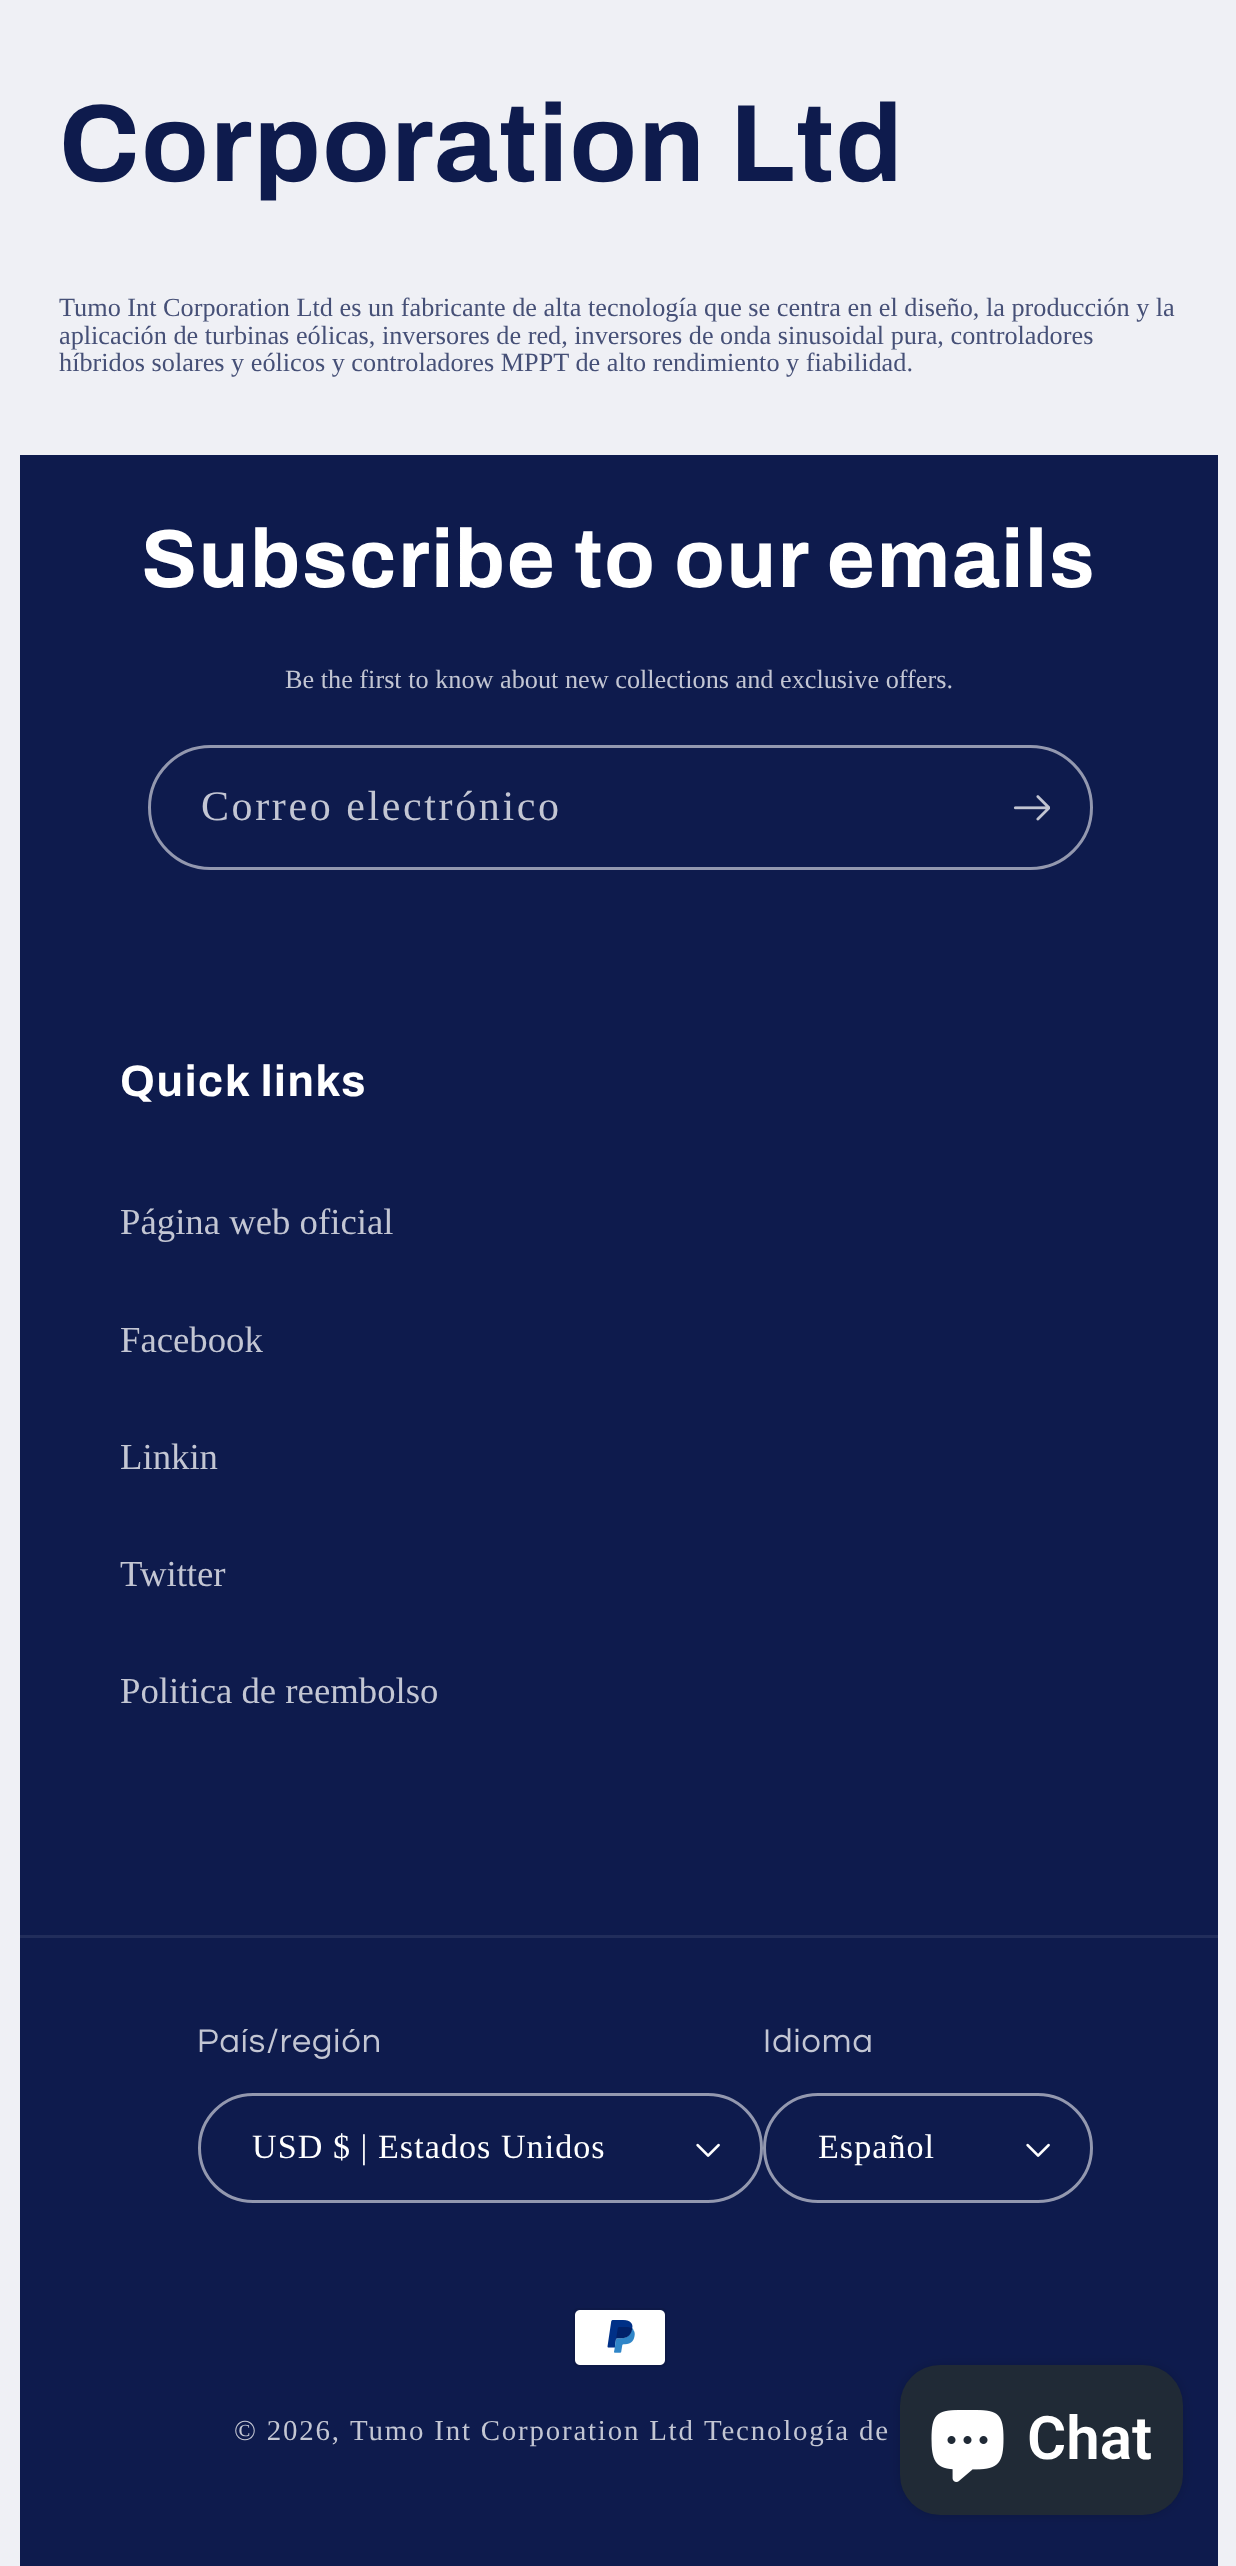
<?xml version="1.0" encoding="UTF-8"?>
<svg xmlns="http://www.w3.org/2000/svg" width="1236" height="2566">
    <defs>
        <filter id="blur1" x="-50%" y="-200%" width="200%" height="500%"><feGaussianBlur stdDeviation="6"/></filter>
    </defs>
    <rect width="100%" height="100%" fill="#EFF0F5"/>
    <text x="59" y="181" font-family="Archivo" font-size="110" font-weight="700" letter-spacing="1.65" fill="#0E1B4D">Corporation Ltd</text>
    <text font-family="Liberation Serif" font-size="26.25" fill="#465077">
        <tspan x="59" y="316">Tumo Int Corporation Ltd es un fabricante de alta tecnología que se centra en el diseño, la producción y la</tspan>
        <tspan x="59" y="344">aplicación de turbinas eólicas, inversores de red, inversores de onda sinusoidal pura, controladores</tspan>
        <tspan x="59" y="371">híbridos solares y eólicos y controladores MPPT de alto rendimiento y fiabilidad.</tspan>
    </text>
    <rect x="20" y="455" width="1198" height="2111" fill="#0E1B4D"/>
    <text x="141" y="587" font-family="Archivo" font-size="82.5" font-weight="700" letter-spacing="1.65" fill="#FFFFFF">Subscribe to our emails</text>
    <text x="285" y="688" font-family="Liberation Serif" font-size="26.25" fill="#C3C6D3">Be the first to know about new collections and exclusive offers.</text>
    <rect x="149.5" y="746.5" width="942" height="122" rx="61" fill="none" stroke="#9398AF" stroke-width="3"/>
    <text x="201" y="820" font-family="Liberation Serif" font-size="42" letter-spacing="2.6" fill="#C3C6D3">Correo electrónico</text>
    <image x="1013" y="795" width="37" height="26" href="img_01.png"/>
    <text x="120" y="1096" font-family="Archivo" font-size="44" font-weight="700" letter-spacing="1.65" fill="#FFFFFF">Quick links</text>
    <text x="120" y="1234" font-family="Liberation Serif" font-size="36.75" fill="#C3C6D3">Página web oficial</text>
    <text x="120" y="1352" font-family="Liberation Serif" font-size="36.75" fill="#C3C6D3">Facebook</text>
    <text x="120" y="1469" font-family="Liberation Serif" font-size="36.75" fill="#C3C6D3">Linkin</text>
    <text x="120" y="1586" font-family="Liberation Serif" font-size="36.75" fill="#C3C6D3">Twitter</text>
    <text x="120" y="1703" font-family="Liberation Serif" font-size="36.75" fill="#C3C6D3">Politica de reembolso</text>
    <rect x="20" y="1935" width="1198" height="3" fill="#212D5B"/>
    <text x="197" y="2052" font-family="Questrial" font-size="34.1" letter-spacing="1.05" fill="#C3C6D3">País/región</text>
    <image x="696" y="2143" width="24" height="14" href="img_02.png"/>
    <rect x="199.5" y="2094.5" width="562" height="107" rx="53.5" fill="none" stroke="#9398AF" stroke-width="3"/>
    <text x="252" y="2158" font-family="Liberation Serif" font-size="34.1" letter-spacing="1.05" fill="#FFFFFF">USD $ | Estados Unidos</text>
    <text x="763" y="2052" font-family="Questrial" font-size="34.1" letter-spacing="1.05" fill="#C3C6D3">Idioma</text>
    <image x="1026" y="2143" width="24" height="14" href="img_02.png"/>
    <rect x="764.5" y="2094.5" width="327" height="107" rx="53.5" fill="none" stroke="#9398AF" stroke-width="3"/>
    <text x="818" y="2158" font-family="Liberation Serif" font-size="34.1" letter-spacing="1.05" fill="#FFFFFF">Español</text>
    <image x="573" y="2308" width="94" height="59" href="img_03.png"/>
    <text x="234" y="2440" font-family="Liberation Serif" font-size="28.9" letter-spacing="1.8" fill="#C3C6D3">© 2026,</text>
    <text x="350" y="2440" font-family="Liberation Serif" font-size="28.9" letter-spacing="1.8" fill="#C3C6D3">Tumo Int Corporation Ltd</text>
    <text x="704" y="2440" font-family="Liberation Serif" font-size="28.9" letter-spacing="1.8" fill="#C3C6D3">Tecnología de</text>
    <rect x="900" y="2365" width="283" height="150" rx="40" fill="#000000" fill-opacity="0.15" filter="url(#blur1)"/>
    <rect x="900" y="2365" width="283" height="150" rx="40" fill="#202A36"/>
    <image x="931" y="2410" width="73" height="72" href="img_04.png"/>
    <text x="1027" y="2459" font-family="Roboto" font-size="60" font-weight="600" fill="#FFFFFF">Chat</text>
</svg>
